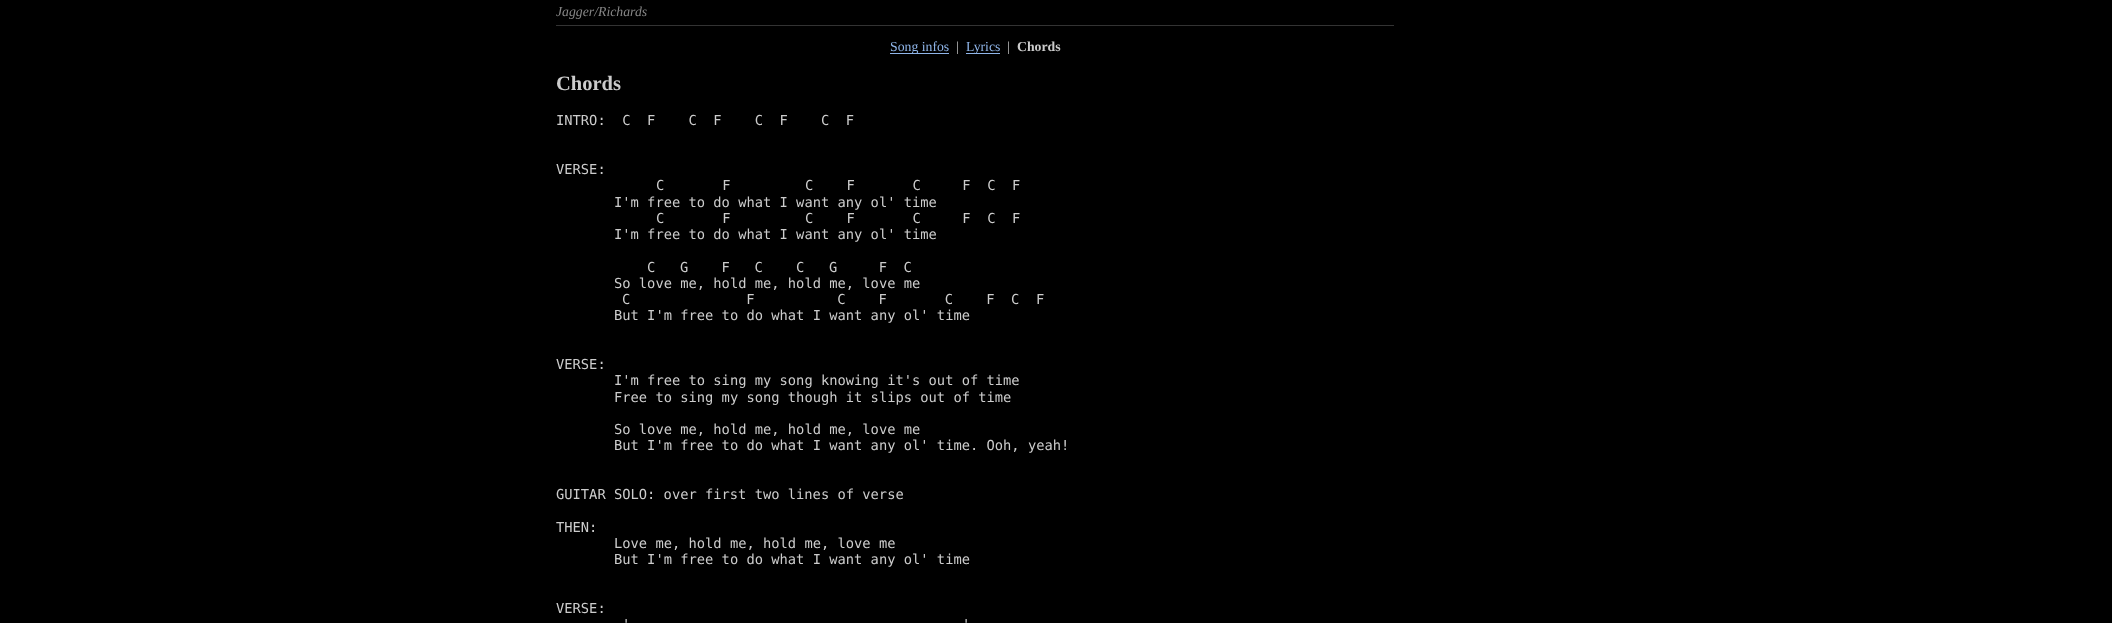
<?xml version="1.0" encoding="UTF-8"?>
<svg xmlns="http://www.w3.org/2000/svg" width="2112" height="623">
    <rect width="100%" height="100%" fill="#000000"/>
    <rect x="556" y="25" width="838" height="1" fill="#333333"/>
    <text x="556" y="16" font-family="Liberation Serif" font-size="13.75" font-style="italic" fill="#888888">Jagger/Richards</text>
    <rect x="890" y="53" width="59" height="1" fill="#8FB5E9"/>
    <text x="890" y="51" font-family="Liberation Serif" font-size="13.75" fill="#8FB5E9">Song infos</text>
    <text x="956" y="51" font-family="Liberation Serif" font-size="13.75" fill="#CCCCCC">|</text>
    <rect x="966" y="53" width="34" height="1" fill="#8FB5E9"/>
    <text x="966" y="51" font-family="Liberation Serif" font-size="13.75" fill="#8FB5E9">Lyrics</text>
    <text x="1007" y="51" font-family="Liberation Serif" font-size="13.75" fill="#CCCCCC">|</text>
    <text x="1017" y="51" font-family="Liberation Serif" font-size="13.75" font-weight="700" fill="#CCCCCC">Chords</text>
    <text x="556" y="90" font-family="Liberation Serif" font-size="20.5" font-weight="700" fill="#CCCCCC">Chords</text>
    <text x="556" y="125" font-family="DejaVu Sans Mono" font-size="13.75" fill="#CCCCCC" xml:space="preserve">INTRO:  C  F    C  F    C  F    C  F</text>
    <text x="556" y="174" font-family="DejaVu Sans Mono" font-size="13.75" fill="#CCCCCC">VERSE:</text>
    <text x="656" y="190" font-family="DejaVu Sans Mono" font-size="13.75" fill="#CCCCCC" xml:space="preserve">C       F         C    F       C     F  C  F</text>
    <text x="614" y="207" font-family="DejaVu Sans Mono" font-size="13.75" fill="#CCCCCC">I'm free to do what I want any ol' time</text>
    <text x="656" y="223" font-family="DejaVu Sans Mono" font-size="13.75" fill="#CCCCCC" xml:space="preserve">C       F         C    F       C     F  C  F</text>
    <text x="614" y="239" font-family="DejaVu Sans Mono" font-size="13.75" fill="#CCCCCC">I'm free to do what I want any ol' time</text>
    <text x="647" y="272" font-family="DejaVu Sans Mono" font-size="13.75" fill="#CCCCCC" xml:space="preserve">C   G    F   C    C   G     F  C</text>
    <text x="614" y="288" font-family="DejaVu Sans Mono" font-size="13.75" fill="#CCCCCC">So love me, hold me, hold me, love me</text>
    <text x="622" y="304" font-family="DejaVu Sans Mono" font-size="13.75" fill="#CCCCCC" xml:space="preserve">C              F          C    F       C    F  C  F</text>
    <text x="614" y="320" font-family="DejaVu Sans Mono" font-size="13.75" fill="#CCCCCC">But I'm free to do what I want any ol' time</text>
    <text x="556" y="369" font-family="DejaVu Sans Mono" font-size="13.75" fill="#CCCCCC">VERSE:</text>
    <text font-family="DejaVu Sans Mono" font-size="13.75" fill="#CCCCCC">
        <tspan x="614" y="385">I'm free to sing my song knowing it's out of time</tspan>
        <tspan x="614" y="402">Free to sing my song though it slips out of time</tspan>
    </text>
    <text font-family="DejaVu Sans Mono" font-size="13.75" fill="#CCCCCC">
        <tspan x="614" y="434">So love me, hold me, hold me, love me</tspan>
        <tspan x="614" y="450">But I'm free to do what I want any ol' time. Ooh, yeah!</tspan>
    </text>
    <text x="556" y="499" font-family="DejaVu Sans Mono" font-size="13.75" fill="#CCCCCC">GUITAR SOLO: over first two lines of verse</text>
    <text x="556" y="532" font-family="DejaVu Sans Mono" font-size="13.75" fill="#CCCCCC">THEN:</text>
    <text font-family="DejaVu Sans Mono" font-size="13.75" fill="#CCCCCC">
        <tspan x="614" y="548">Love me, hold me, hold me, love me</tspan>
        <tspan x="614" y="564">But I'm free to do what I want any ol' time</tspan>
    </text>
    <text x="556" y="613" font-family="DejaVu Sans Mono" font-size="13.75" fill="#CCCCCC">VERSE:</text>
    <text x="622" y="629" font-family="DejaVu Sans Mono" font-size="13.75" fill="#CCCCCC">'</text>
    <text x="962" y="629" font-family="DejaVu Sans Mono" font-size="13.75" fill="#CCCCCC">'</text>
</svg>
